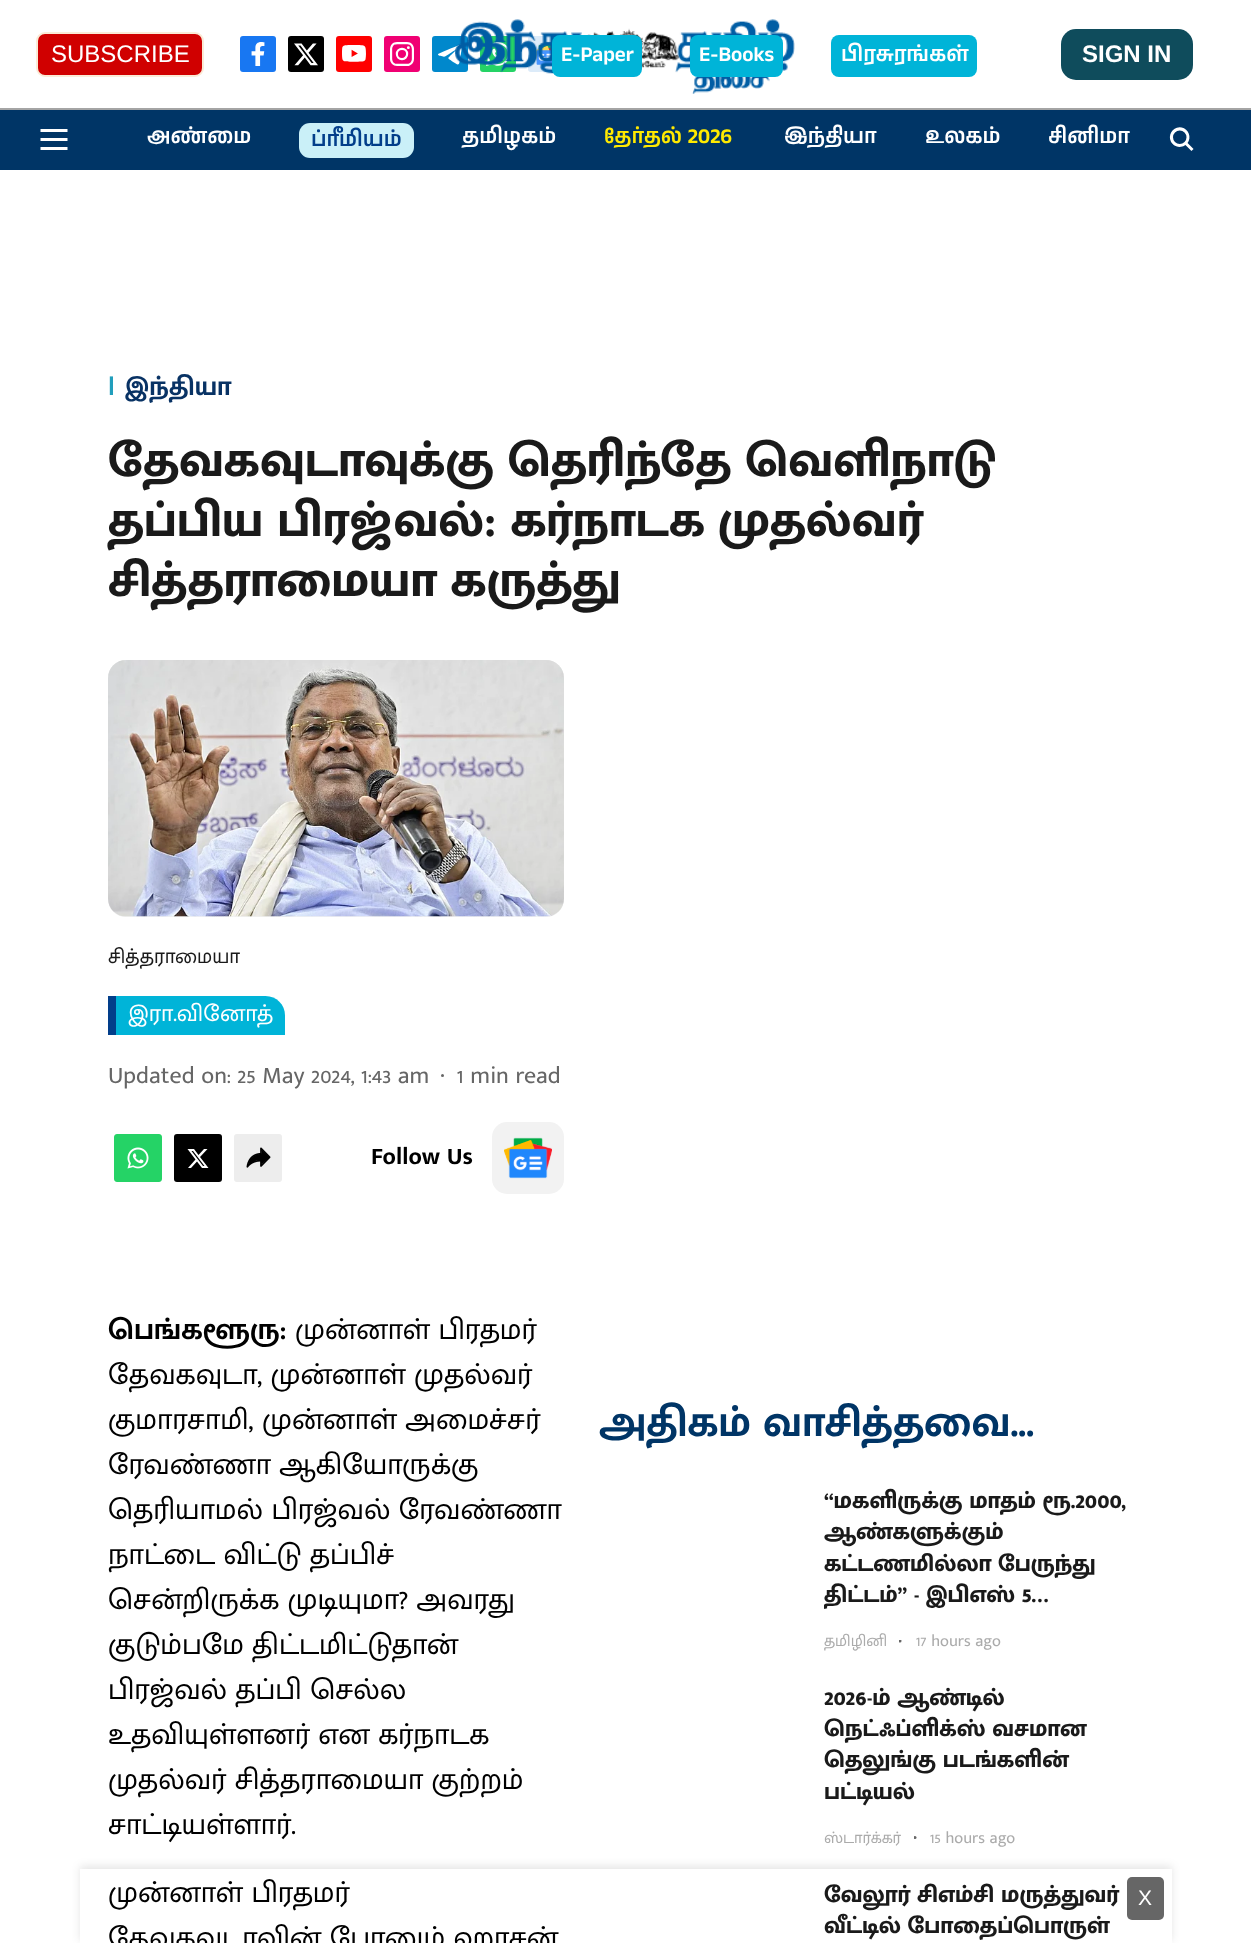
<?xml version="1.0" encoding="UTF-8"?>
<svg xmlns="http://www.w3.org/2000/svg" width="1251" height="1943">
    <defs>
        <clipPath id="clip1"><rect x="108" y="365" width="5" height="45"/></clipPath>
        <clipPath id="clip2"><rect x="824" y="1487" width="319" height="126"/></clipPath>
        <clipPath id="clip3"><rect x="899" y="1640" width="5" height="5"/></clipPath>
        <clipPath id="clip4"><rect x="824" y="1685" width="319" height="124"/></clipPath>
        <clipPath id="clip5"><rect x="914" y="1836" width="5" height="5"/></clipPath>
        <clipPath id="clip6"><path d="M 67 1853 H 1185 V 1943 H 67 Z M 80 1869 H 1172 V 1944 H 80 Z" clip-rule="evenodd"/></clipPath>
        <filter id="blur1" x="-50%" y="-200%" width="200%" height="500%"><feGaussianBlur stdDeviation="4"/></filter>
    </defs>
    <rect width="100%" height="100%" fill="#FFFFFF"/>
    <rect x="0" y="108" width="1251" height="2" fill="#A4A4A4"/>
    <image x="432" y="36" width="36" height="36" href="img_06.png"/>
    <image x="480" y="36" width="36" height="36" href="img_07.png"/>
    <image x="528" y="36" width="29" height="36" href="img_08.png"/>
    <image x="455" y="19" width="340" height="75" href="img_01.png"/>
    <rect x="37" y="33" width="166" height="43" rx="8" fill="#D00000" stroke="#FAEBD7" stroke-width="2"/>
    <text x="51" y="62" font-family="Liberation Sans" font-size="24" fill="#FFFFFF">SUBSCRIBE</text>
    <image x="240" y="36" width="36" height="36" href="img_02.png"/>
    <image x="288" y="36" width="36" height="36" href="img_03.png"/>
    <image x="336" y="36" width="36" height="36" href="img_04.png"/>
    <image x="384" y="36" width="36" height="36" href="img_05.png"/>
    <rect x="552" y="35" width="90" height="42" rx="8" fill="#00B4D8"/>
    <text x="561" y="61" font-family="Anek Tamil" font-size="21" font-weight="600" fill="#FFFFFF">E-Paper</text>
    <rect x="690" y="35" width="93" height="42" rx="8" fill="#00B4D8"/>
    <text x="699" y="61" font-family="Anek Tamil" font-size="21" font-weight="600" fill="#FFFFFF">E-Books</text>
    <rect x="831" y="35" width="146" height="42" rx="8" fill="#00B4D8"/>
    <text x="841" y="61" font-family="Anek Tamil" font-size="21" font-weight="600" fill="#FFFFFF">பிரசுரங்கள்</text>
    <rect x="1061" y="29" width="132" height="51" rx="15" fill="#0F4C5C"/>
    <text x="1082" y="62" font-family="Liberation Sans" font-size="24" font-weight="700" fill="#FFFFFF">SIGN IN</text>
    <rect x="0" y="110" width="1251" height="60" fill="#003566"/>
    <image x="40" y="129" width="28" height="21" href="img_09.png"/>
    <text x="147" y="143" font-family="Anek Tamil" font-size="21" font-weight="600" fill="#FFFFFF">அண்மை</text>
    <rect x="299" y="123" width="115" height="35" rx="11" fill="#CAF0F8"/>
    <text x="311" y="146" font-family="Anek Tamil" font-size="21" font-weight="600" fill="#023E8A">ப்ரீமியம்</text>
    <text x="462" y="143" font-family="Anek Tamil" font-size="21" font-weight="600" fill="#FFFFFF">தமிழகம்</text>
    <text x="604" y="143" font-family="Anek Tamil" font-size="21" font-weight="600" fill="#FFEA00">தேர்தல் 2026</text>
    <text x="784" y="143" font-family="Anek Tamil" font-size="21" font-weight="600" fill="#FFFFFF">இந்தியா</text>
    <text x="925" y="143" font-family="Anek Tamil" font-size="21" font-weight="600" fill="#FFFFFF">உலகம்</text>
    <text x="1048" y="143" font-family="Anek Tamil" font-size="21" font-weight="600" fill="#FFFFFF">சினிமா</text>
    <image x="1169" y="127" width="25" height="24" href="img_10.png"/>
    <g clip-path="url(#clip1)">
        <text x="108" y="395" font-family="Liberation Sans" font-size="27" font-weight="700" fill="#219EBC">I</text>
    </g>
    <text x="125" y="395" font-family="Mukta Malar" font-size="27" font-weight="700" fill="#083264">இந்தியா</text>
    <text font-family="Mukta Malar" font-size="49.5" font-weight="800" fill="#1A1A1A">
        <tspan x="108" y="476">தேவகவுடாவுக்கு தெரிந்தே வெளிநாடு</tspan>
        <tspan x="108" y="536">தப்பிய பிரஜ்வல்: கர்நாடக முதல்வர்</tspan>
        <tspan x="108" y="596">சித்தராமையா கருத்து</tspan>
    </text>
    <rect x="108" y="660" width="456" height="257" rx="18" fill="#F0F0F0"/>
    <image x="108" y="660" width="456" height="257" href="img_11.png"/>
    <text x="108" y="963" font-family="Mukta Malar" font-size="21" fill="#1A1A1A">சித்தராமையா</text>
    <path d="M 108 996 H 265.5 C 276.5 996 285 1004.5 285 1015.5 V 1035 H 108 Z" fill="#00B4D8"/>
    <rect x="108" y="996" width="8" height="39" fill="#023E8A"/>
    <text x="128" y="1021" font-family="Mukta Malar" font-size="24" fill="#FFFFFF">இரா.வினோத்</text>
    <text x="108" y="1083" font-family="Mukta Malar" font-size="24" fill="#666666">Updated on: 25 May 2024, 1:43 am</text>
    <circle cx="442.5" cy="1075.5" r="1.5" fill="#666666"/>
    <text x="457" y="1083" font-family="Mukta Malar" font-size="24" fill="#666666">1 min read</text>
    <image x="114" y="1134" width="48" height="48" href="img_12.png"/>
    <rect x="174" y="1134" width="48" height="48" rx="3" fill="#000000"/>
    <path d="M 204 1149 H 207.5 L 200 1157 L 208.5 1168 H 202 L 197 1161.5 L 191 1168 H 188 L 195.5 1159.5 L 187.5 1149 H 194 L 198.5 1155 Z M 203 1166 H 204.5 L 193 1151 H 191.5 Z" fill="#FFFFFF"/>
    <rect x="234" y="1134" width="48" height="48" rx="3" fill="#EDEDED"/>
    <image x="246" y="1147" width="25" height="21" href="img_13.png"/>
    <text x="371" y="1164" font-family="Mukta Malar" font-size="24" font-weight="700" fill="#000000">Follow Us</text>
    <rect x="492" y="1122" width="72" height="72" rx="15" fill="#F2F2F2"/>
    <image x="504" y="1137" width="48" height="42" href="img_14.png"/>
    <text x="108" y="1339" font-family="Mukta Malar" font-size="30" font-weight="700" fill="#000000">பெங்களூரு:</text>
    <text x="295" y="1339" font-family="Mukta Malar" font-size="30" fill="#000000">முன்னாள் பிரதமர்</text>
    <text font-family="Mukta Malar" font-size="30" fill="#000000">
        <tspan x="108" y="1384">தேவகவுடா, முன்னாள் முதல்வர்</tspan>
        <tspan x="108" y="1429">குமாரசாமி, முன்னாள் அமைச்சர்</tspan>
        <tspan x="108" y="1474">ரேவண்ணா ஆகியோருக்கு</tspan>
        <tspan x="108" y="1519">தெரியாமல் பிரஜ்வல் ரேவண்ணா</tspan>
        <tspan x="108" y="1564">நாட்டை விட்டு தப்பிச்</tspan>
        <tspan x="108" y="1609">சென்றிருக்க முடியுமா? அவரது</tspan>
        <tspan x="108" y="1654">குடும்பமே திட்டமிட்டுதான்</tspan>
        <tspan x="108" y="1699">பிரஜ்வல் தப்பி செல்ல</tspan>
        <tspan x="108" y="1744">உதவியுள்ளனர் என கர்நாடக</tspan>
        <tspan x="108" y="1789">முதல்வர் சித்தராமையா குற்றம்</tspan>
        <tspan x="108" y="1834">சாட்டியள்ளார்.</tspan>
    </text>
    <text font-family="Mukta Malar" font-size="30" fill="#000000">
        <tspan x="108" y="1902">முன்னாள் பிரதமர்</tspan>
        <tspan x="108" y="1947">தேவகவுடாவின் பேரனும் ஹாசன்</tspan>
    </text>
    <text x="599" y="1436" font-family="Mukta Malar" font-size="43.25" font-weight="700" fill="#003566">அதிகம் வாசித்தவை...</text>
    <text font-family="Mukta Malar" font-size="24" font-weight="800" fill="#1A1A1A">
        <tspan x="824" y="1508">“மகளிருக்கு மாதம் ரூ.2000,</tspan>
        <tspan x="824" y="1539">ஆண்களுக்கும்</tspan>
        <tspan x="824" y="1571">கட்டணமில்லா பேருந்து</tspan>
    </text>
    <g clip-path="url(#clip2)">
        <text x="824" y="1602" font-family="Mukta Malar" font-size="24" font-weight="800" fill="#1A1A1A">திட்டம்” - இபிஎஸ் 5…</text>
    </g>
    <text x="824" y="1646" font-family="Mukta Malar" font-size="16.5" fill="#ABABAB">தமிழினி</text>
    <g clip-path="url(#clip3)">
        <circle cx="900" cy="1641" r="1.5" fill="#666666"/>
    </g>
    <text x="916" y="1646" font-family="Mukta Malar" font-size="16.5" fill="#ABABAB">17 hours ago</text>
    <text font-family="Mukta Malar" font-size="24" font-weight="800" fill="#1A1A1A">
        <tspan x="824" y="1705">2026-ம் ஆண்டில்</tspan>
        <tspan x="824" y="1736">நெட்ஃப்ளிக்ஸ் வசமான</tspan>
    </text>
    <g clip-path="url(#clip4)">
        <text x="824" y="1767" font-family="Mukta Malar" font-size="24" font-weight="800" fill="#1A1A1A">தெலுங்கு படங்களின்</text>
    </g>
    <text x="824" y="1799" font-family="Mukta Malar" font-size="24" font-weight="800" fill="#1A1A1A">பட்டியல்</text>
    <text x="824" y="1843" font-family="Mukta Malar" font-size="16.5" fill="#ABABAB">ஸ்டார்க்கர்</text>
    <g clip-path="url(#clip5)">
        <circle cx="915" cy="1837.5" r="1.5" fill="#666666"/>
    </g>
    <text x="930" y="1843" font-family="Mukta Malar" font-size="16.5" fill="#ABABAB">15 hours ago</text>
    <text font-family="Mukta Malar" font-size="24" font-weight="800" fill="#1A1A1A">
        <tspan x="824" y="1902">வேலூர் சிஎம்சி மருத்துவர்</tspan>
        <tspan x="824" y="1933">வீட்டில் போதைப்பொருள்</tspan>
    </text>
    <g clip-path="url(#clip6)">
        <rect x="80" y="1866" width="1092" height="75" fill="#000000" fill-opacity="0.1" filter="url(#blur1)"/>
    </g>
    <rect x="1127" y="1877" width="37" height="43" rx="5" fill="#666666"/>
    <text x="1138" y="1905" font-family="Liberation Sans" font-size="21" fill="#FFFFFF">X</text>
</svg>
